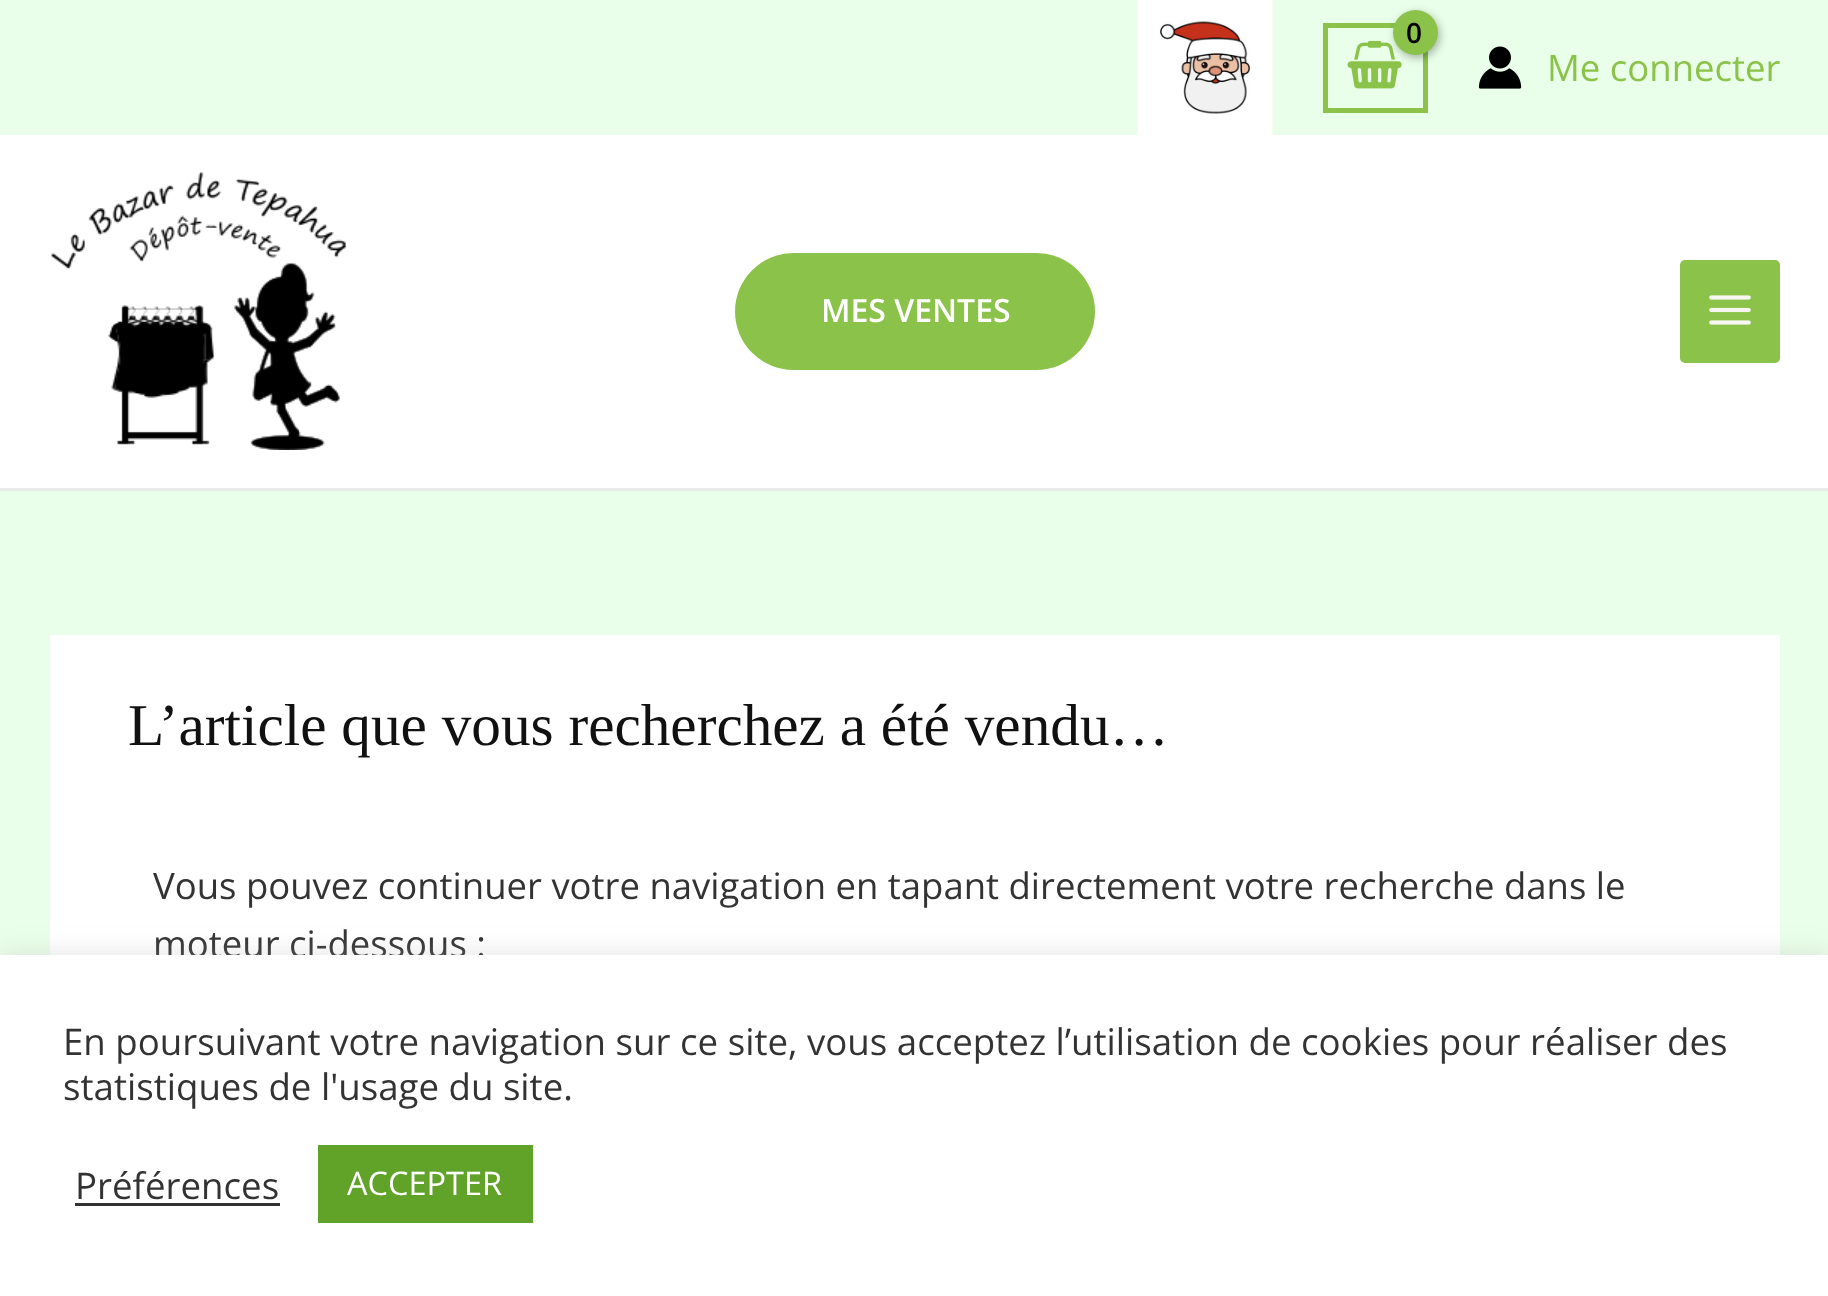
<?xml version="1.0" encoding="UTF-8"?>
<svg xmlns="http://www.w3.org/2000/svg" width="1828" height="1296">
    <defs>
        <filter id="blur1" x="-50%" y="-200%" width="200%" height="500%"><feGaussianBlur stdDeviation="4"/></filter>
        <filter id="blur2" x="-50%" y="-200%" width="200%" height="500%"><feGaussianBlur stdDeviation="12.5"/></filter>
    </defs>
    <rect width="100%" height="100%" fill="#E9FFE9"/>
    <image x="1137" y="0" width="136" height="135" href="img_01.png"/>
    <rect x="1325.5" y="25.5" width="100" height="85" fill="none" stroke="#8BC34A" stroke-width="5"/>
    <image x="1347" y="40" width="55" height="49" href="img_02.png"/>
    <rect x="1395" y="13" width="45" height="45" rx="22.5" fill="#000000" fill-opacity="0.3" filter="url(#blur1)"/>
    <circle cx="1415.5" cy="32.5" r="22.5" fill="#8BC34A"/>
    <text x="1406" y="43" font-family="Open Sans" font-size="28" font-weight="600" letter-spacing="-1" fill="#000000">0</text>
    <image x="1478" y="46" width="44" height="43" href="img_03.png"/>
    <text x="1547" y="81" font-family="Open Sans" font-size="36.5" fill="#8BC34A">Me connecter</text>
    <rect x="0" y="135" width="1828" height="353" fill="#FFFFFF"/>
    <rect x="0" y="488" width="1828" height="3" fill="#EAEAEA"/>
    <image x="51" y="172" width="296" height="278" href="img_04.png"/>
    <rect x="735" y="253" width="360" height="117" rx="58.5" fill="#8BC34A"/>
    <text x="821" y="322" font-family="Open Sans" font-size="32" font-weight="600" fill="#FFFFFF">MES VENTES</text>
    <rect x="1680" y="260" width="100" height="103" rx="5" fill="#8BC34A"/>
    <image x="1709" y="295" width="42" height="30" href="img_05.png"/>
    <rect x="50" y="635" width="1730" height="320" fill="#FFFFFF"/>
    <text x="128" y="745" font-family="Liberation Serif" font-size="59.25" fill="#111111">L’article que vous recherchez a été vendu…</text>
    <text font-family="Open Sans" font-size="36.5" fill="#333333">
        <tspan x="153" y="899" word-spacing="-0.1">Vous pouvez continuer votre navigation en tapant directement votre recherche dans le</tspan>
        <tspan x="153" y="957">moteur ci-dessous :</tspan>
    </text>
    <rect x="0" y="953" width="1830" height="342" fill="#ACABAB" fill-opacity="0.3" filter="url(#blur2)"/>
    <rect x="0" y="955" width="1828" height="341" fill="#FFFFFF"/>
    <text font-family="Open Sans" font-size="36.65" fill="#333333">
        <tspan x="63" y="1055">En poursuivant votre navigation sur ce site, vous acceptez l’utilisation de cookies pour réaliser des</tspan>
        <tspan x="63" y="1100">statistiques de l'usage du site.</tspan>
    </text>
    <text x="75" y="1199" font-family="Open Sans" font-size="36.65" fill="#333333">Préférences</text>
    <rect x="75" y="1203" width="205" height="3" fill="#333333"/>
    <rect x="318" y="1145" width="215" height="78" fill="#61A229"/>
    <text x="347" y="1195" font-family="Open Sans" font-size="32.5" fill="#FFFFFF">ACCEPTER</text>
</svg>
